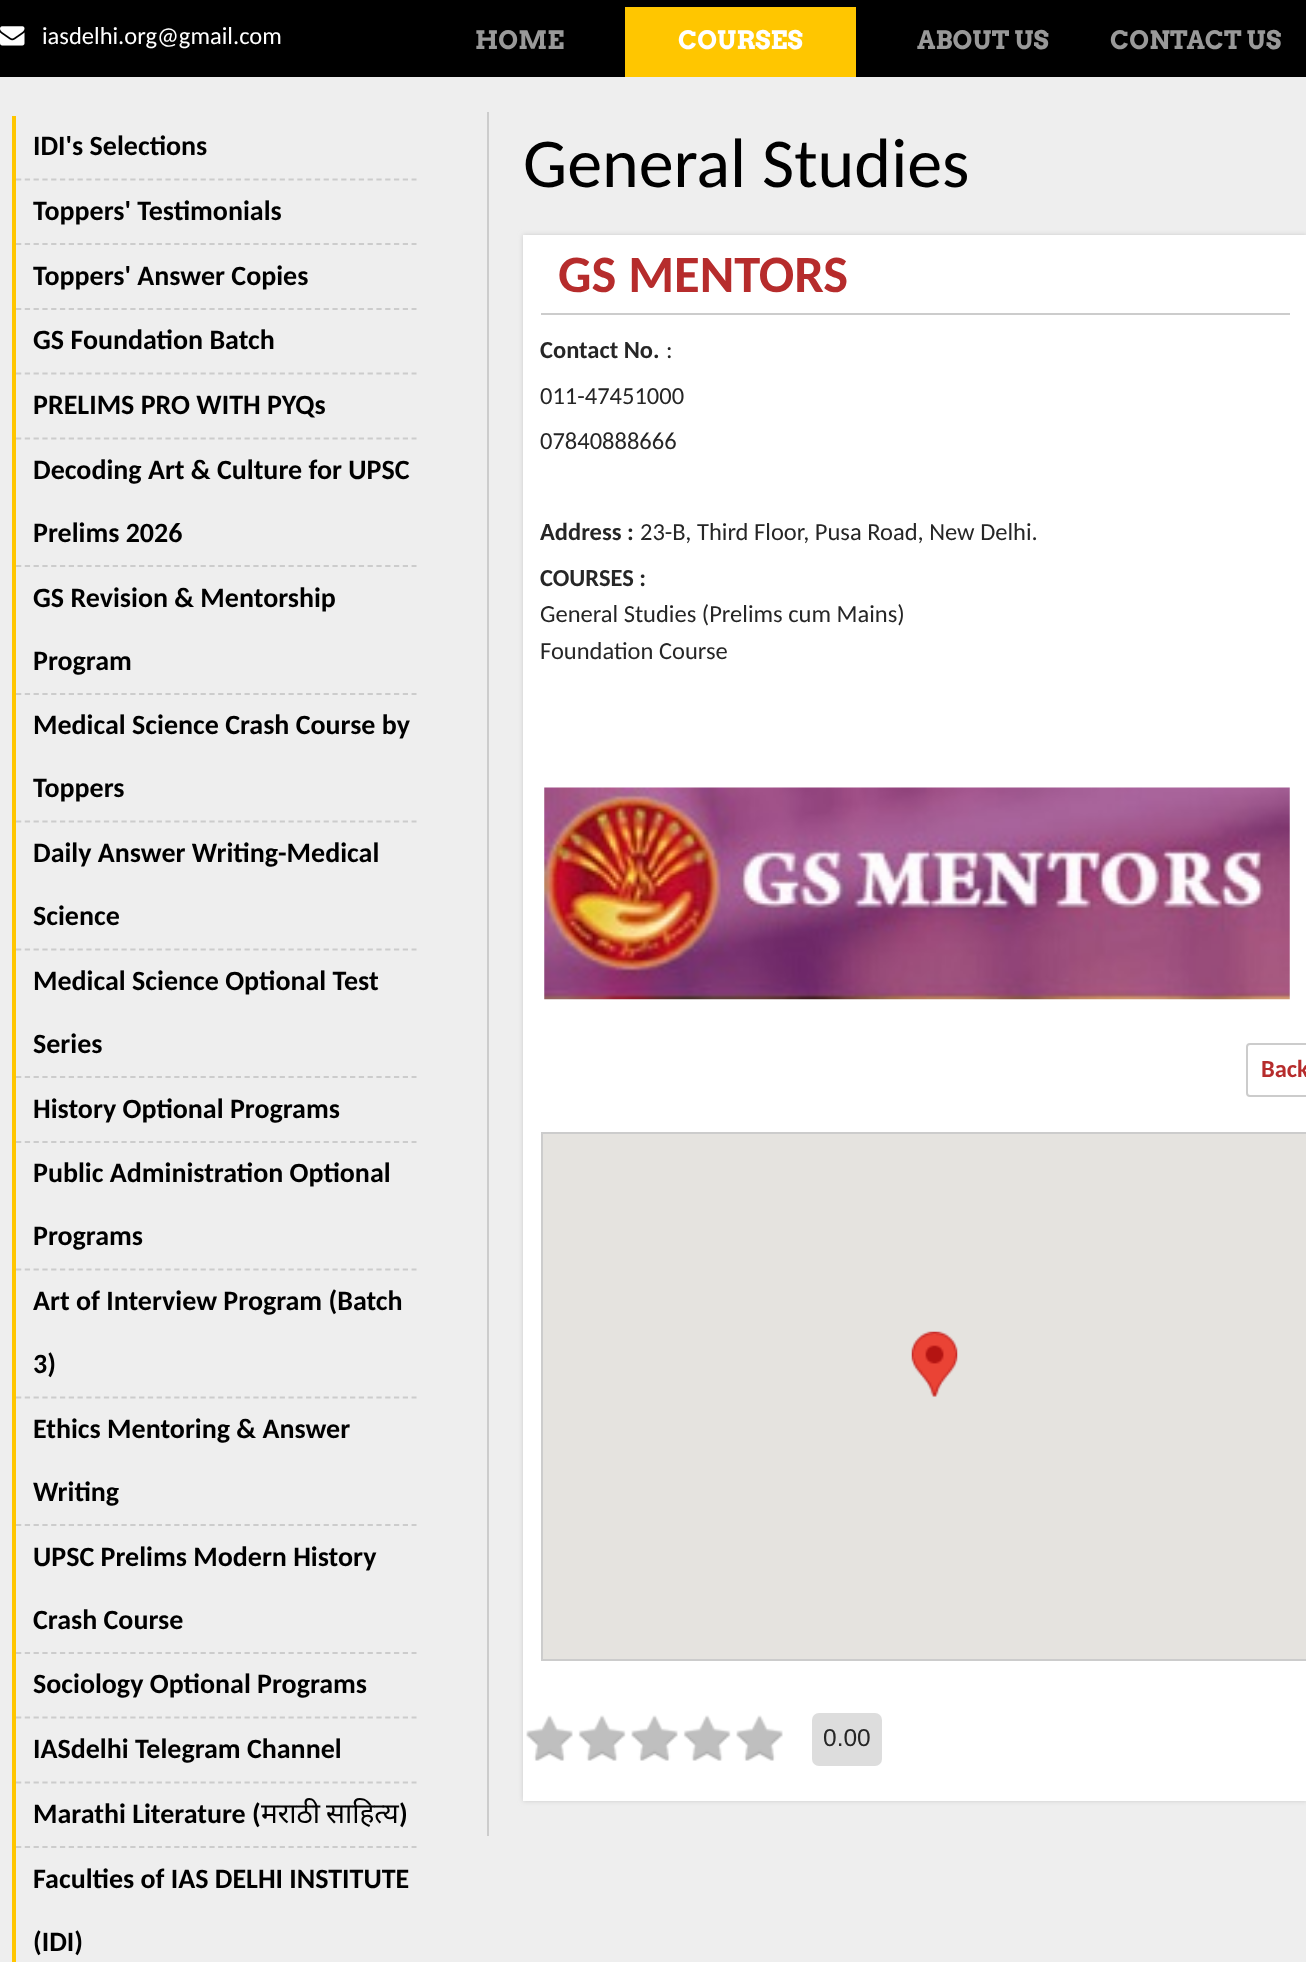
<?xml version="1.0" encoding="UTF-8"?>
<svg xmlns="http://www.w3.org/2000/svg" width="1306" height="1962">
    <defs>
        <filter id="blur1" x="-50%" y="-200%" width="200%" height="500%"><feGaussianBlur stdDeviation="2.5"/></filter>
    </defs>
    <rect width="100%" height="100%" fill="#EEEEEE"/>
    <rect x="0" y="0" width="1306" height="77" fill="#000000"/>
    <image x="0" y="26" width="25" height="20" href="img_01.png"/>
    <text x="42" y="44" font-family="Carlito" font-size="24.5" fill="#FFFFFF">iasdelhi.org@gmail.com</text>
    <text x="475" y="49" font-family="Arvo" font-size="25.25" font-weight="700" fill="#999999">HOME</text>
    <rect x="625" y="7" width="231" height="70" fill="#FFC600"/>
    <text x="678" y="49" font-family="Arvo" font-size="25.25" font-weight="700" fill="#FFFFFF">COURSES</text>
    <text x="917" y="49" font-family="Arvo" font-size="25.25" font-weight="700" fill="#999999">ABOUT US</text>
    <text x="1110" y="49" font-family="Arvo" font-size="25.25" font-weight="700" fill="#999999">CONTACT US</text>
    <rect x="12" y="116" width="4" height="1846" fill="#FFC600"/>
    <path d="M 16 179.5 H 416.5" fill="none" stroke="#CCCCCC" stroke-width="1.8" stroke-dasharray="5.25 3.54"/>
    <text x="33" y="155" font-family="Carlito" font-size="28" font-weight="700" fill="#000000">IDI's Selections</text>
    <path d="M 16 244 H 416.5" fill="none" stroke="#CCCCCC" stroke-width="1.8" stroke-dasharray="5.25 3.54"/>
    <text x="33" y="220" font-family="Carlito" font-size="28" font-weight="700" fill="#000000">Toppers' Testimonials</text>
    <path d="M 16 309 H 416.5" fill="none" stroke="#CCCCCC" stroke-width="1.8" stroke-dasharray="5.25 3.54"/>
    <text x="33" y="285" font-family="Carlito" font-size="28" font-weight="700" fill="#000000">Toppers' Answer Copies</text>
    <path d="M 16 373.5 H 416.5" fill="none" stroke="#CCCCCC" stroke-width="1.8" stroke-dasharray="5.25 3.54"/>
    <text x="33" y="349" font-family="Carlito" font-size="28" font-weight="700" fill="#000000">GS Foundation Batch</text>
    <path d="M 16 438.5 H 416.5" fill="none" stroke="#CCCCCC" stroke-width="1.8" stroke-dasharray="5.25 3.54"/>
    <text x="33" y="414" font-family="Carlito" font-size="28" font-weight="700" fill="#000000">PRELIMS PRO WITH PYQs</text>
    <path d="M 16 566 H 416.5" fill="none" stroke="#CCCCCC" stroke-width="1.8" stroke-dasharray="5.25 3.54"/>
    <text x="33" y="479" font-family="Carlito" font-size="28" font-weight="700" fill="#000000">Decoding Art &amp; Culture for UPSC</text>
    <text x="33" y="542" font-family="Carlito" font-size="28" font-weight="700" fill="#000000">Prelims 2026</text>
    <path d="M 16 694 H 416.5" fill="none" stroke="#CCCCCC" stroke-width="1.8" stroke-dasharray="5.25 3.54"/>
    <text x="33" y="607" font-family="Carlito" font-size="28" font-weight="700" fill="#000000">GS Revision &amp; Mentorship</text>
    <text x="33" y="670" font-family="Carlito" font-size="28" font-weight="700" fill="#000000">Program</text>
    <path d="M 16 821.5 H 416.5" fill="none" stroke="#CCCCCC" stroke-width="1.8" stroke-dasharray="5.25 3.54"/>
    <text x="33" y="734" font-family="Carlito" font-size="28" font-weight="700" fill="#000000">Medical Science Crash Course by</text>
    <text x="33" y="797" font-family="Carlito" font-size="28" font-weight="700" fill="#000000">Toppers</text>
    <path d="M 16 949.5 H 416.5" fill="none" stroke="#CCCCCC" stroke-width="1.8" stroke-dasharray="5.25 3.54"/>
    <text x="33" y="862" font-family="Carlito" font-size="28" font-weight="700" fill="#000000">Daily Answer Writing-Medical</text>
    <text x="33" y="925" font-family="Carlito" font-size="28" font-weight="700" fill="#000000">Science</text>
    <path d="M 16 1077 H 416.5" fill="none" stroke="#CCCCCC" stroke-width="1.8" stroke-dasharray="5.25 3.54"/>
    <text x="33" y="990" font-family="Carlito" font-size="28" font-weight="700" fill="#000000">Medical Science Optional Test</text>
    <text x="33" y="1053" font-family="Carlito" font-size="28" font-weight="700" fill="#000000">Series</text>
    <path d="M 16 1142 H 416.5" fill="none" stroke="#CCCCCC" stroke-width="1.8" stroke-dasharray="5.25 3.54"/>
    <text x="33" y="1118" font-family="Carlito" font-size="28" font-weight="700" fill="#000000">History Optional Programs</text>
    <path d="M 16 1269.5 H 416.5" fill="none" stroke="#CCCCCC" stroke-width="1.8" stroke-dasharray="5.25 3.54"/>
    <text x="33" y="1182" font-family="Carlito" font-size="28" font-weight="700" fill="#000000">Public Administration Optional</text>
    <text x="33" y="1245" font-family="Carlito" font-size="28" font-weight="700" fill="#000000">Programs</text>
    <path d="M 16 1397.5 H 416.5" fill="none" stroke="#CCCCCC" stroke-width="1.8" stroke-dasharray="5.25 3.54"/>
    <text x="33" y="1310" font-family="Carlito" font-size="28" font-weight="700" fill="#000000">Art of Interview Program (Batch</text>
    <text x="33" y="1373" font-family="Carlito" font-size="28" font-weight="700" fill="#000000">3)</text>
    <path d="M 16 1525 H 416.5" fill="none" stroke="#CCCCCC" stroke-width="1.8" stroke-dasharray="5.25 3.54"/>
    <text x="33" y="1438" font-family="Carlito" font-size="28" font-weight="700" fill="#000000">Ethics Mentoring &amp; Answer</text>
    <text x="33" y="1501" font-family="Carlito" font-size="28" font-weight="700" fill="#000000">Writing</text>
    <path d="M 16 1653 H 416.5" fill="none" stroke="#CCCCCC" stroke-width="1.8" stroke-dasharray="5.25 3.54"/>
    <text x="33" y="1566" font-family="Carlito" font-size="28" font-weight="700" fill="#000000">UPSC Prelims Modern History</text>
    <text x="33" y="1629" font-family="Carlito" font-size="28" font-weight="700" fill="#000000">Crash Course</text>
    <path d="M 16 1717.5 H 416.5" fill="none" stroke="#CCCCCC" stroke-width="1.8" stroke-dasharray="5.25 3.54"/>
    <text x="33" y="1693" font-family="Carlito" font-size="28" font-weight="700" fill="#000000">Sociology Optional Programs</text>
    <path d="M 16 1782.5 H 416.5" fill="none" stroke="#CCCCCC" stroke-width="1.8" stroke-dasharray="5.25 3.54"/>
    <text x="33" y="1758" font-family="Carlito" font-size="28" font-weight="700" fill="#000000">IASdelhi Telegram Channel</text>
    <path d="M 16 1847 H 416.5" fill="none" stroke="#CCCCCC" stroke-width="1.8" stroke-dasharray="5.25 3.54"/>
    <text x="33" y="1823" font-family="'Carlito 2'" font-size="28" font-weight="700" fill="#000000">Marathi Literature (</text>
    <text x="261" y="1823" font-family="Noto Sans" font-size="28" fill="#000000">मराठी</text>
    <text x="326" y="1823" font-family="Noto Sans" font-size="28" fill="#000000">साहित्य</text>
    <text x="399" y="1823" font-family="'Carlito 2'" font-size="28" font-weight="700" fill="#000000">)</text>
    <text x="33" y="1888" font-family="Carlito" font-size="28" font-weight="700" fill="#000000">Faculties of IAS DELHI INSTITUTE</text>
    <text x="33" y="1951" font-family="Carlito" font-size="28" font-weight="700" fill="#000000">(IDI)</text>
    <rect x="487" y="112" width="2" height="1724" fill="#CCCCCC"/>
    <text x="523" y="187" font-family="Carlito" font-size="70" fill="#000000">General Studies</text>
    <rect x="523" y="235" width="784" height="1566" fill="#CCCCCC" filter="url(#blur1)"/>
    <rect x="523" y="235" width="783" height="1566" fill="#FFFFFF"/>
    <rect x="541" y="313" width="749" height="2" fill="#CCCCCC"/>
    <text x="558" y="292" font-family="Carlito" font-size="52.5" font-weight="700" fill="#B62C2C">GS MENTORS</text>
    <text x="540" y="358" font-family="Carlito" font-size="24.5" font-weight="700" fill="#262626">Contact No.</text>
    <text x="666" y="358" font-family="Carlito" font-size="24.5" fill="#262626">:</text>
    <text font-family="Carlito" font-size="24.5" fill="#262626">
        <tspan x="540" y="404">011-47451000</tspan>
        <tspan x="540" y="449">07840888666</tspan>
    </text>
    <text x="540" y="540" font-family="Carlito" font-size="24.5" font-weight="700" fill="#262626">Address :</text>
    <text x="640" y="540" font-family="Carlito" font-size="24.5" fill="#262626">23-B, Third Floor, Pusa Road, New Delhi.</text>
    <text x="540" y="586" font-family="Carlito" font-size="24.5" font-weight="700" fill="#262626">COURSES :</text>
    <text font-family="Carlito" font-size="24.5" fill="#262626">
        <tspan x="540" y="622">General Studies (Prelims cum Mains)</tspan>
        <tspan x="540" y="659">Foundation Course</tspan>
    </text>
    <image x="544" y="787" width="746" height="213" href="img_02.png"/>
    <rect x="1247" y="1044" width="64" height="52" rx="3" fill="none" stroke="#CCCCCC" stroke-width="2"/>
    <text x="1261" y="1077" font-family="Carlito" font-size="24.5" font-weight="700" fill="#B62C2C">Back</text>
    <rect x="542" y="1133" width="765" height="527" fill="none" stroke="#CCCCCC" stroke-width="2"/>
    <rect x="543" y="1134" width="763" height="525" fill="#E5E3DF"/>
    <image x="911" y="1331" width="47" height="66" href="img_03.png"/>
    <image x="526" y="1715" width="47" height="46" href="img_04.png"/>
    <image x="578" y="1715" width="48" height="46" href="img_05.png"/>
    <image x="631" y="1715" width="47" height="46" href="img_04.png"/>
    <image x="683" y="1715" width="48" height="46" href="img_05.png"/>
    <image x="736" y="1715" width="47" height="46" href="img_06.png"/>
    <rect x="812" y="1713" width="70" height="53" rx="7" fill="#DDDDDD"/>
    <text x="823" y="1746" font-family="Liberation Sans" font-size="24.5" fill="#262626">0.00</text>
</svg>
